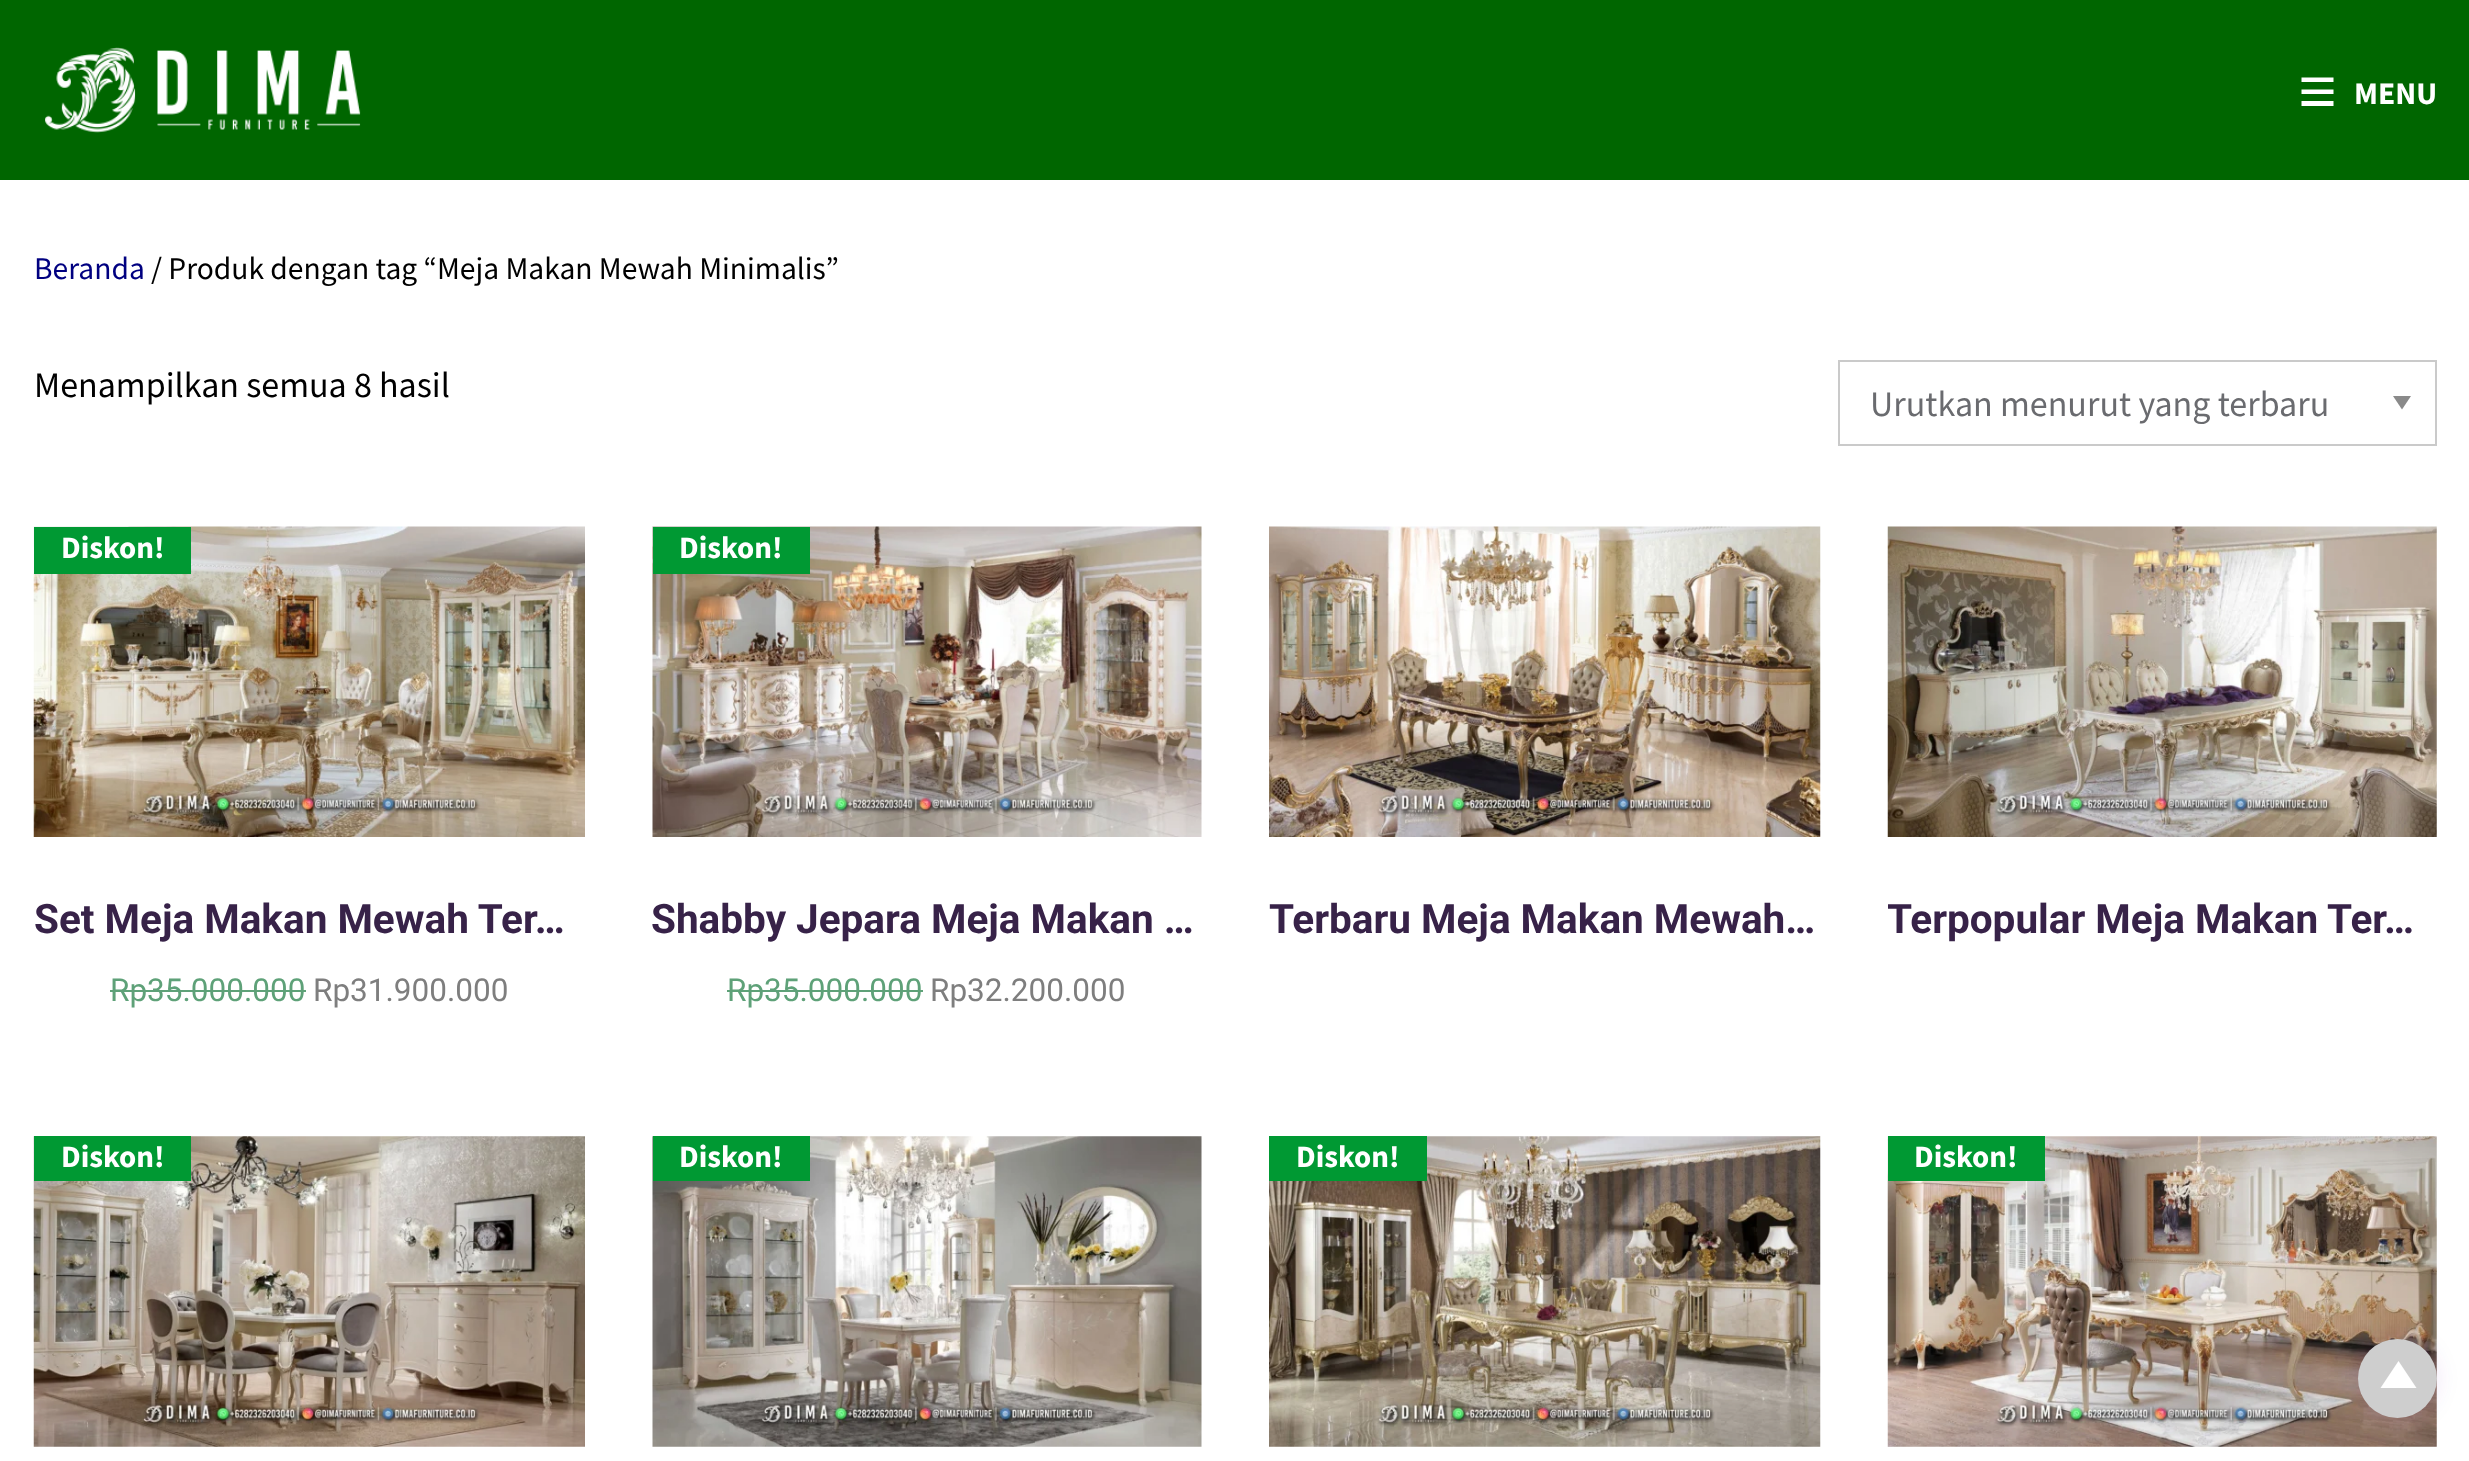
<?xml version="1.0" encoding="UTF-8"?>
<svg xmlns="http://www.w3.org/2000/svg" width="2469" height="1461">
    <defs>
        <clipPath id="clip1"><rect x="1888" y="873" width="549" height="95"/></clipPath>
        <filter id="blur1" x="-50%" y="-200%" width="200%" height="500%"><feGaussianBlur stdDeviation="11"/></filter>
    </defs>
    <rect width="100%" height="100%" fill="#FFFFFF"/>
    <rect x="0" y="0" width="2469" height="180" fill="#006600"/>
    <image x="45" y="47" width="316" height="86" href="img_01.png"/>
    <path d="M 2301.5 89.5 H 2333.5 V 94 H 2301.5 Z M 2301.5 77.5 H 2333.5 V 82 H 2301.5 Z M 2301.5 101 H 2333.5 V 106 H 2301.5 Z" fill="#FFFFFF"/>
    <text x="2354" y="104" font-family="Source Sans Pro" font-size="31.5" font-weight="700" fill="#FFFFFF">MENU</text>
    <text x="34" y="279" font-family="Source Sans Pro" font-size="31.5" fill="#000080">Beranda</text>
    <text x="151" y="279" font-family="Source Sans Pro" font-size="31.5" fill="#000000">/ Produk dengan tag “Meja Makan Mewah Minimalis”</text>
    <text x="34" y="397" font-family="Source Sans Pro" font-size="36" fill="#000000">Menampilkan semua 8 hasil</text>
    <path d="M 2393 396 H 2411 L 2402 409.5 Z" fill="#8A8A8A"/>
    <rect x="1839" y="361" width="597" height="84" fill="none" stroke="#CACACA" stroke-width="2"/>
    <text x="1870" y="416" font-family="Source Sans Pro" font-size="36" fill="#6A6B6F">Urutkan menurut yang terbaru</text>
    <image x="33" y="526" width="552" height="311" href="img_02.png"/>
    <rect x="34" y="527" width="157" height="47" fill="#009933"/>
    <text x="61" y="558" font-family="Source Sans Pro" font-size="31" font-weight="700" fill="#FFFFFF">Diskon!</text>
    <text x="34" y="933" font-family="Roboto" font-size="40.5" font-weight="700" fill="#372248">Set Meja Makan Mewah Ter…</text>
    <text x="110" y="1001" font-family="Roboto" font-size="31.5" fill="#5EA178">Rp35.000.000</text>
    <rect x="110" y="990" width="196" height="2" fill="#5EA178"/>
    <text x="313" y="1001" font-family="Roboto" font-size="31.5" fill="#7E7E7E">Rp31.900.000</text>
    <image x="652" y="526" width="550" height="311" href="img_03.png"/>
    <rect x="653" y="527" width="157" height="47" fill="#009933"/>
    <text x="679" y="558" font-family="Source Sans Pro" font-size="31" font-weight="700" fill="#FFFFFF">Diskon!</text>
    <text x="651" y="933" font-family="Roboto" font-size="40.5" font-weight="700" fill="#372248">Shabby Jepara Meja Makan …</text>
    <text x="727" y="1001" font-family="Roboto" font-size="31.5" fill="#5EA178">Rp35.000.000</text>
    <rect x="727" y="990" width="196" height="2" fill="#5EA178"/>
    <text x="930" y="1001" font-family="Roboto" font-size="31.5" fill="#7E7E7E">Rp32.200.000</text>
    <image x="1269" y="526" width="552" height="311" href="img_04.png"/>
    <text x="1269" y="933" font-family="Roboto" font-size="40.5" font-weight="700" fill="#372248">Terbaru Meja Makan Mewah…</text>
    <image x="1887" y="526" width="550" height="311" href="img_05.png"/>
    <g clip-path="url(#clip1)">
        <text x="1887" y="933" font-family="Roboto" font-size="40.5" font-weight="700" fill="#372248">Terpopular Meja Makan Ter…</text>
    </g>
    <image x="33" y="1136" width="552" height="311" href="img_06.png"/>
    <rect x="34" y="1136" width="157" height="45" fill="#009933"/>
    <text x="61" y="1167" font-family="Source Sans Pro" font-size="31" font-weight="700" fill="#FFFFFF">Diskon!</text>
    <image x="652" y="1136" width="550" height="311" href="img_07.png"/>
    <rect x="653" y="1136" width="157" height="45" fill="#009933"/>
    <text x="679" y="1167" font-family="Source Sans Pro" font-size="31" font-weight="700" fill="#FFFFFF">Diskon!</text>
    <image x="1269" y="1136" width="552" height="311" href="img_08.png"/>
    <rect x="1269" y="1136" width="158" height="45" fill="#009933"/>
    <text x="1296" y="1167" font-family="Source Sans Pro" font-size="31" font-weight="700" fill="#FFFFFF">Diskon!</text>
    <image x="1887" y="1136" width="550" height="311" href="img_09.png"/>
    <rect x="1888" y="1136" width="157" height="45" fill="#009933"/>
    <text x="1914" y="1167" font-family="Source Sans Pro" font-size="31" font-weight="700" fill="#FFFFFF">Diskon!</text>
    <rect x="2358" y="1339" width="79" height="79" rx="39.5" fill="#6A0AAB" fill-opacity="0.1" filter="url(#blur1)"/>
    <circle cx="2397.5" cy="1378.5" r="39.5" fill="#CECECE"/>
    <path d="M 2398.5 1361 L 2416.5 1388 H 2380.5 Z" fill="#FFFFFF"/>
</svg>
